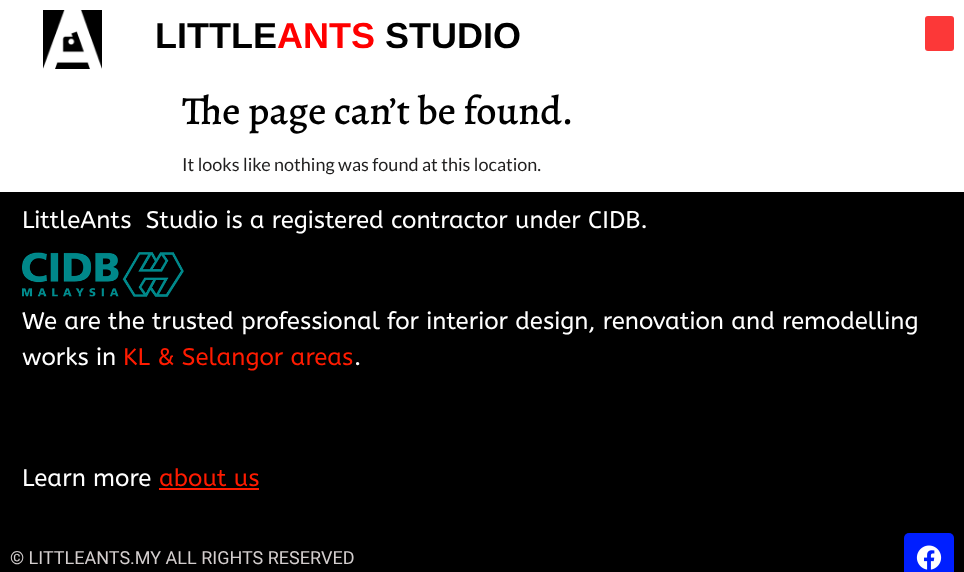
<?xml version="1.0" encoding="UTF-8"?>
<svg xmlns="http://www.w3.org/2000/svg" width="964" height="572">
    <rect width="100%" height="100%" fill="#FFFFFF"/>
    <image x="43" y="10" width="59" height="59" href="img_01.png"/>
    <text x="155" y="48" font-family="Liberation Sans" font-size="36" font-weight="700" fill="#000000">LITTLE</text>
    <text x="277" y="48" font-family="Liberation Sans" font-size="36" font-weight="700" fill="#FF0000">ANTS</text>
    <text x="385" y="48" font-family="Liberation Sans" font-size="36" font-weight="700" fill="#000000">STUDIO</text>
    <rect x="925" y="16" width="29" height="35" rx="3" fill="#FC3838"/>
    <text x="182" y="124" font-family="Alegreya" font-size="40" font-weight="500" fill="#000000">The page can’t be found.</text>
    <text x="182" y="171" font-family="Lato" font-size="18" fill="#201F1F">It looks like nothing was found at this location.</text>
    <rect x="0" y="192" width="964" height="380" fill="#000000"/>
    <text x="22" y="228" font-family="ABeeZee" font-size="24" fill="#FFFFFF" xml:space="preserve">LittleAnts  Studio is a registered contractor under CIDB.</text>
    <image x="22" y="252" width="162" height="45" href="img_02.png"/>
    <text font-family="ABeeZee" font-size="24" fill="#FFFFFF">
        <tspan x="22" y="329">We are the trusted professional for interior design, renovation and remodelling</tspan>
        <tspan x="22" y="365">works in</tspan>
    </text>
    <text x="123" y="365" font-family="ABeeZee" font-size="24" fill="#FF1B00">KL &amp; Selangor areas</text>
    <text x="354" y="365" font-family="ABeeZee" font-size="24" fill="#FFFFFF">.</text>
    <text x="22" y="486" font-family="ABeeZee" font-size="24" fill="#FFFFFF">Learn more</text>
    <text x="159" y="486" font-family="ABeeZee" font-size="24" fill="#FF1B00">about us</text>
    <rect x="159" y="488" width="100" height="2" fill="#FF1B00"/>
    <text x="10" y="564" font-family="Roboto" font-size="18" fill="#D3CECE">© LITTLEANTS.MY ALL RIGHTS RESERVED</text>
    <rect x="904" y="533" width="50" height="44" rx="5" fill="#001FFF"/>
    <image x="916" y="545" width="26" height="25" href="img_03.png"/>
</svg>
